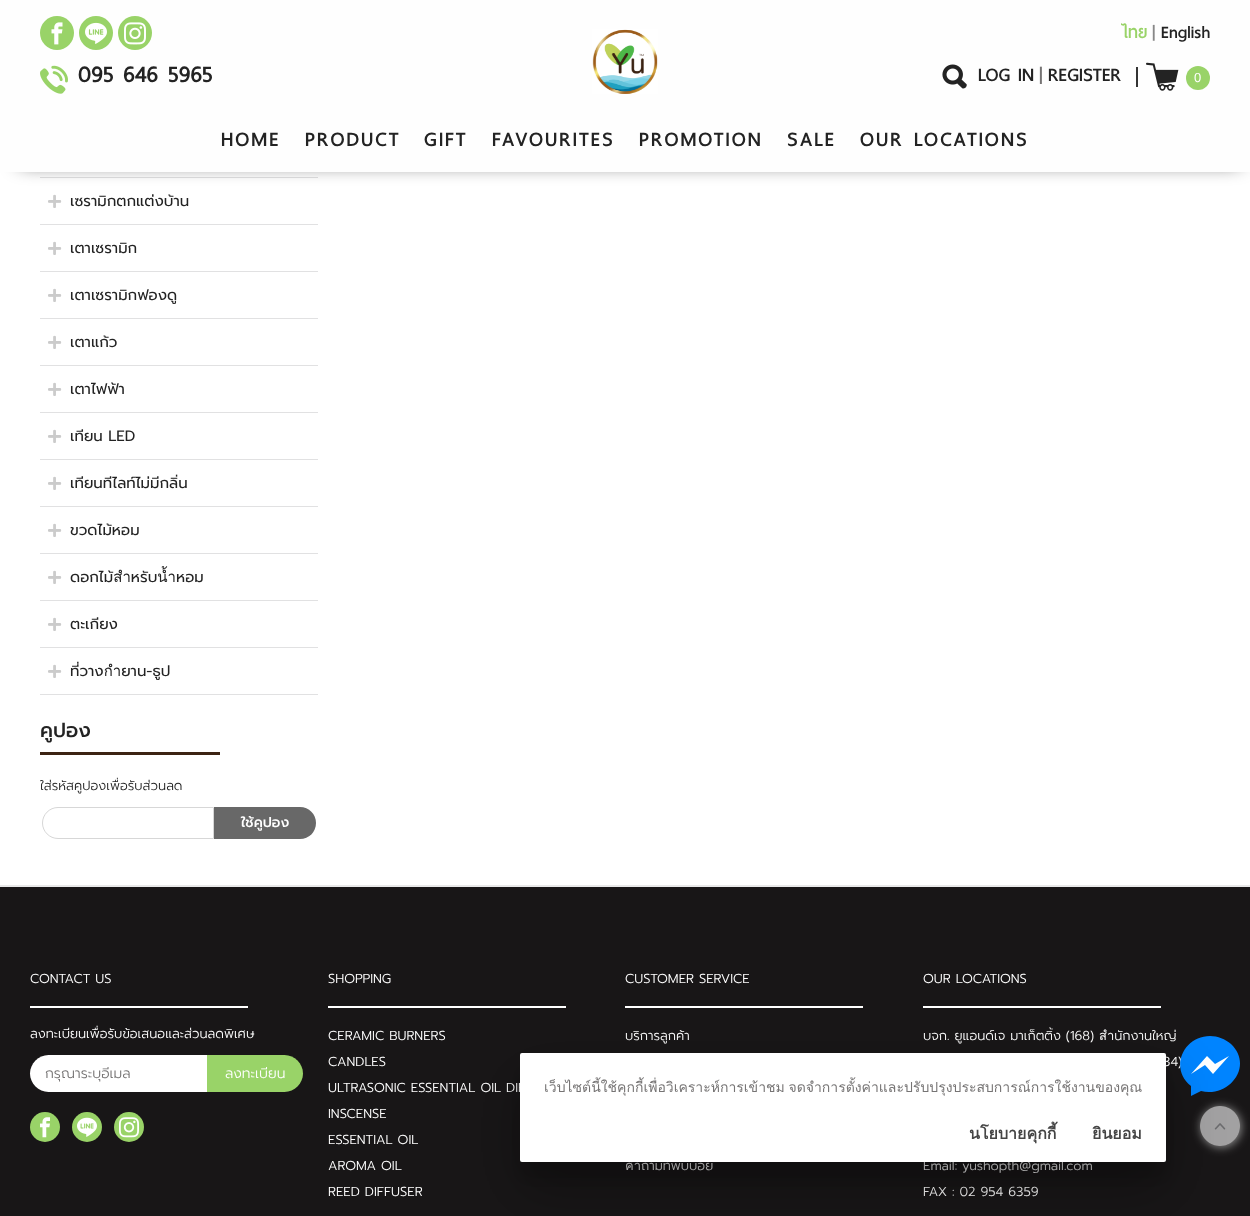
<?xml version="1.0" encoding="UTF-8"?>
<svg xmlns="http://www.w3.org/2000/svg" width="1250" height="1216">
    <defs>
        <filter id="blur1" x="-50%" y="-200%" width="200%" height="500%"><feGaussianBlur stdDeviation="10"/></filter>
        <clipPath id="clip1"><path d="M 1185 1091 H 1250 V 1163 H 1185 Z M 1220 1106 C 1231 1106 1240 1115 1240 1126 C 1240 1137 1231 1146 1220 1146 C 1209 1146 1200 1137 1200 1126 C 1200 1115 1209 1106 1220 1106 Z" clip-rule="evenodd"/></clipPath>
        <filter id="blur2" x="-50%" y="-200%" width="200%" height="500%"><feGaussianBlur stdDeviation="5"/></filter>
        <filter id="blur3" x="-50%" y="-200%" width="200%" height="500%"><feGaussianBlur stdDeviation="27.5"/></filter>
        <filter id="blur4" x="-50%" y="-200%" width="200%" height="500%"><feGaussianBlur stdDeviation="8.5"/></filter>
    </defs>
    <rect width="100%" height="100%" fill="#FFFFFF"/>
    <rect x="40" y="177" width="278" height="1" fill="#E1E1E2"/>
    <rect x="20" y="20" width="1220" height="142" fill="#000000" fill-opacity="0.9" filter="url(#blur1)"/>
    <rect x="0" y="0" width="1250" height="172" fill="#FEFEFE"/>
    <circle cx="57" cy="33" r="17" fill="#99D368"/>
    <image x="51" y="22" width="12" height="23" href="img_01.png"/>
    <circle cx="96" cy="33" r="17" fill="#99D368"/>
    <image x="85" y="22" width="22" height="22" href="img_02.png"/>
    <circle cx="135" cy="33" r="17" fill="#99D368"/>
    <image x="124" y="22" width="22" height="23" href="img_03.png"/>
    <image x="40" y="65" width="28" height="29" href="img_04.png"/>
    <text x="78" y="82" font-family="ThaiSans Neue" font-size="30" font-weight="700" fill="#232323">095 646 5965</text>
    <image x="592" y="29" width="66" height="65" href="img_05.png"/>
    <text x="1121" y="38" font-family="ThaiSans Neue" font-size="22" font-weight="700" fill="#99D368">ไทย</text>
    <text x="1152" y="38" font-family="ThaiSans Neue" font-size="22" font-weight="700" fill="#888888">|</text>
    <text x="1161" y="38" font-family="ThaiSans Neue" font-size="22" font-weight="700" fill="#232323">English</text>
    <image x="942" y="64" width="25" height="25" href="img_06.png"/>
    <text x="978" y="81" font-family="ThaiSans Neue" font-size="24" font-weight="700" fill="#232323">LOG IN</text>
    <text x="1039" y="81" font-family="ThaiSans Neue" font-size="24" font-weight="700" fill="#767474">|</text>
    <text x="1048" y="81" font-family="ThaiSans Neue" font-size="24" font-weight="700" fill="#232323">REGISTER</text>
    <rect x="1136" y="67" width="2" height="20" fill="#343434"/>
    <image x="1146" y="62" width="33" height="29" href="img_07.png"/>
    <circle cx="1198" cy="78" r="12" fill="#99D368"/>
    <text x="1194" y="82" font-family="Liberation Sans" font-size="13" fill="#FFFFFF">0</text>
    <text x="221" y="146" font-family="ThaiSans Neue" font-size="26" font-weight="700" letter-spacing="2" fill="#232323">HOME</text>
    <text x="305" y="146" font-family="ThaiSans Neue" font-size="26" font-weight="700" letter-spacing="2" fill="#232323">PRODUCT</text>
    <text x="424" y="146" font-family="ThaiSans Neue" font-size="26" font-weight="700" letter-spacing="2" fill="#232323">GIFT</text>
    <text x="492" y="146" font-family="ThaiSans Neue" font-size="26" font-weight="700" letter-spacing="2" fill="#232323">FAVOURITES</text>
    <text x="639" y="146" font-family="ThaiSans Neue" font-size="26" font-weight="700" letter-spacing="2" fill="#232323">PROMOTION</text>
    <text x="787" y="146" font-family="ThaiSans Neue" font-size="26" font-weight="700" letter-spacing="2" fill="#232323">SALE</text>
    <text x="860" y="146" font-family="ThaiSans Neue" font-size="26" font-weight="700" letter-spacing="2" fill="#232323">OUR LOCATIONS</text>
    <rect x="40" y="224" width="278" height="1" fill="#E1E1E2"/>
    <image x="48" y="194" width="14" height="14" href="img_08.png"/>
    <text x="70" y="206" font-family="Prompt" font-size="15" fill="#232323">เซรามิกตกแต่งบ้าน</text>
    <rect x="40" y="271" width="278" height="1" fill="#E1E1E2"/>
    <image x="48" y="241" width="14" height="14" href="img_08.png"/>
    <text x="70" y="253" font-family="Prompt" font-size="15" fill="#232323">เตาเซรามิก</text>
    <rect x="40" y="318" width="278" height="1" fill="#E1E1E2"/>
    <image x="48" y="288" width="14" height="14" href="img_08.png"/>
    <text x="70" y="300" font-family="Prompt" font-size="15" fill="#232323">เตาเซรามิกฟองดู</text>
    <rect x="40" y="365" width="278" height="1" fill="#E1E1E2"/>
    <image x="48" y="335" width="14" height="14" href="img_08.png"/>
    <text x="70" y="347" font-family="Prompt" font-size="15" fill="#232323">เตาแก้ว</text>
    <rect x="40" y="412" width="278" height="1" fill="#E1E1E2"/>
    <image x="48" y="382" width="14" height="14" href="img_08.png"/>
    <text x="70" y="394" font-family="Prompt" font-size="15" fill="#232323">เตาไฟฟ้า</text>
    <rect x="40" y="459" width="278" height="1" fill="#E1E1E2"/>
    <image x="48" y="429" width="14" height="14" href="img_08.png"/>
    <text x="70" y="441" font-family="Prompt" font-size="15" fill="#232323">เทียน LED</text>
    <rect x="40" y="506" width="278" height="1" fill="#E1E1E2"/>
    <image x="48" y="476" width="14" height="14" href="img_08.png"/>
    <text x="70" y="488" font-family="Prompt" font-size="15" fill="#232323">เทียนทีไลท์ไม่มีกลิ่น</text>
    <rect x="40" y="553" width="278" height="1" fill="#E1E1E2"/>
    <image x="48" y="523" width="14" height="14" href="img_08.png"/>
    <text x="70" y="535" font-family="Prompt" font-size="15" fill="#232323">ขวดไม้หอม</text>
    <rect x="40" y="600" width="278" height="1" fill="#E1E1E2"/>
    <image x="48" y="570" width="14" height="14" href="img_08.png"/>
    <text x="70" y="582" font-family="Prompt" font-size="15" fill="#232323">ดอกไม้สำหรับน้ำหอม</text>
    <rect x="40" y="647" width="278" height="1" fill="#E1E1E2"/>
    <image x="48" y="617" width="14" height="14" href="img_08.png"/>
    <text x="70" y="629" font-family="Prompt" font-size="15" fill="#232323">ตะเกียง</text>
    <rect x="40" y="694" width="278" height="1" fill="#E1E1E2"/>
    <image x="48" y="664" width="14" height="14" href="img_08.png"/>
    <text x="70" y="676" font-family="Prompt" font-size="15" fill="#232323">ที่วางกำยาน-ธูป</text>
    <text x="40" y="737" font-family="Prompt" font-size="20" font-weight="500" fill="#232323">คูปอง</text>
    <rect x="40" y="752" width="180" height="3" fill="#3C2313"/>
    <text x="40" y="790" font-family="Prompt" font-size="13" font-weight="300" fill="#232323">ใส่รหัสคูปองเพื่อรับส่วนลด</text>
    <path d="M 58 807.5 H 213.5 V 838.5 H 58 C 49.5 838.5 42.5 831.5 42.5 823 C 42.5 814.5 49.5 807.5 58 807.5 Z" fill="none" stroke="#D7D7D7"/>
    <path d="M 214 807 H 300 C 309 807 316 814 316 823 C 316 832 309 839 300 839 H 214 Z" fill="#686868"/>
    <text x="241" y="827" font-family="Prompt" font-size="14" font-weight="500" fill="#FFFFFF">ใช้คูปอง</text>
    <rect x="0" y="887" width="1250" height="329" fill="#181617"/>
    <g clip-path="url(#clip1)">
        <rect x="1201" y="1107" width="40" height="40" rx="20" fill="#B4B4B4" fill-opacity="0.8" filter="url(#blur2)"/>
    </g>
    <image x="1200" y="1106" width="40" height="40" href="img_09.png"/>
    <rect x="0" y="885" width="1250" height="2" fill="#E9E9E9"/>
    <text x="30" y="983" font-family="Prompt" font-size="13" font-weight="300" fill="#FFFFFF">CONTACT US</text>
    <rect x="30" y="1006" width="218" height="2" fill="#FFFFFF"/>
    <text x="30" y="1038" font-family="Prompt" font-size="13" font-weight="300" fill="#FFFFFF">ลงทะเบียนเพื่อรับข้อเสนอและส่วนลดพิเศษ</text>
    <path d="M 48.5 1055 H 207 V 1092 H 48.5 C 38.5 1092 30 1083.5 30 1073.5 C 30 1063.5 38.5 1055 48.5 1055 Z" fill="#FFFFFF"/>
    <text x="45" y="1078" font-family="Prompt" font-size="14" font-weight="300" fill="#767474">กรุณาระบุอีเมล</text>
    <path d="M 207 1055 H 284.5 C 294.5 1055 303 1063.5 303 1073.5 C 303 1083.5 294.5 1092 284.5 1092 H 207 Z" fill="#99D368"/>
    <text x="225" y="1078" font-family="Prompt" font-size="14" font-weight="300" fill="#FFFFFF">ลงทะเบียน</text>
    <circle cx="45" cy="1127" r="15" fill="#99D368"/>
    <image x="40" y="1117" width="10" height="21" href="img_10.png"/>
    <circle cx="87" cy="1127" r="15" fill="#99D368"/>
    <image x="77" y="1117" width="20" height="20" href="img_11.png"/>
    <circle cx="129" cy="1127" r="15" fill="#99D368"/>
    <image x="119" y="1117" width="20" height="21" href="img_12.png"/>
    <text x="328" y="983" font-family="Prompt" font-size="13" font-weight="300" fill="#FFFFFF">SHOPPING</text>
    <rect x="328" y="1006" width="238" height="2" fill="#FFFFFF"/>
    <text x="328" y="1040" font-family="Prompt" font-size="13" font-weight="300" fill="#FFFFFF">CERAMIC BURNERS</text>
    <text x="328" y="1066" font-family="Prompt" font-size="13" font-weight="300" fill="#FFFFFF">CANDLES</text>
    <text x="328" y="1092" font-family="Prompt" font-size="13" font-weight="300" fill="#FFFFFF">ULTRASONIC ESSENTIAL OIL DIF</text>
    <text x="328" y="1118" font-family="Prompt" font-size="13" font-weight="300" fill="#FFFFFF">INSCENSE</text>
    <text x="328" y="1144" font-family="Prompt" font-size="13" font-weight="300" fill="#FFFFFF">ESSENTIAL OIL</text>
    <text x="328" y="1170" font-family="Prompt" font-size="13" font-weight="300" fill="#FFFFFF">AROMA OIL</text>
    <text x="328" y="1196" font-family="Prompt" font-size="13" font-weight="300" fill="#FFFFFF">REED DIFFUSER</text>
    <text x="625" y="983" font-family="Prompt" font-size="13" font-weight="300" fill="#FFFFFF">CUSTOMER SERVICE</text>
    <rect x="625" y="1006" width="238" height="2" fill="#FFFFFF"/>
    <text x="625" y="1040" font-family="Prompt" font-size="13" font-weight="300" fill="#FFFFFF">บริการลูกค้า</text>
    <text x="625" y="1170" font-family="Prompt" font-size="13" font-weight="300" fill="#FFFFFF">คำถามที่พบบ่อย</text>
    <text x="923" y="983" font-family="Prompt" font-size="13" font-weight="300" fill="#FFFFFF">OUR LOCATIONS</text>
    <rect x="923" y="1006" width="238" height="2" fill="#FFFFFF"/>
    <text x="923" y="1040" font-family="Prompt" font-size="13" font-weight="300" fill="#FFFFFF">บจก. ยูแอนด์เจ มาเก็ตติ้ง (168) สำนักงานใหญ่</text>
    <text x="1163" y="1066" font-family="Prompt" font-size="13" font-weight="300" fill="#FFFFFF">34)</text>
    <text x="923" y="1170" font-family="Prompt" font-size="13" font-weight="300" fill="#FFFFFF">Email: yushopth@gmail.com</text>
    <text x="923" y="1196" font-family="Prompt" font-size="13" font-weight="300" fill="#FFFFFF">FAX : 02 954 6359</text>
    <ellipse cx="1210" cy="1064.5" rx="25" ry="17" fill="#FFFFFF"/>
    <path d="M 1210 1036 C 1183 1036 1169 1069 1191 1086 V 1096 L 1201 1091 C 1229 1098 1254 1066 1231 1044 C 1225 1039 1218 1036 1210 1036 Z M 1213 1074 L 1205 1065 L 1191 1074 L 1207 1056 L 1215 1064 L 1229 1056 Z" fill="#0084FF"/>
    <rect x="520" y="1080" width="646" height="109" rx="2" fill="#000000" fill-opacity="0.3" filter="url(#blur3)"/>
    <rect x="520" y="1070" width="646" height="109" rx="2" fill="#000000" fill-opacity="0.15" filter="url(#blur4)"/>
    <rect x="520" y="1053" width="646" height="109" rx="2" fill="#FFFFFF"/>
    <text x="544" y="1092" word-spacing="-1" font-family="Loma" font-size="14" fill="#767474">เว็บไซต์นี้ใช้คุกกี้เพื่อวิเคราะห์การเข้าชม จดจำการตั้งค่าและปรับปรุงประสบการณ์การใช้งานของคุณ</text>
    <text x="969" y="1139" font-family="Loma" font-size="16" font-weight="700" fill="#454545">นโยบายคุกกี้</text>
    <text x="1092" y="1139" font-family="Loma" font-size="16" font-weight="700" fill="#454545">ยินยอม</text>
</svg>
